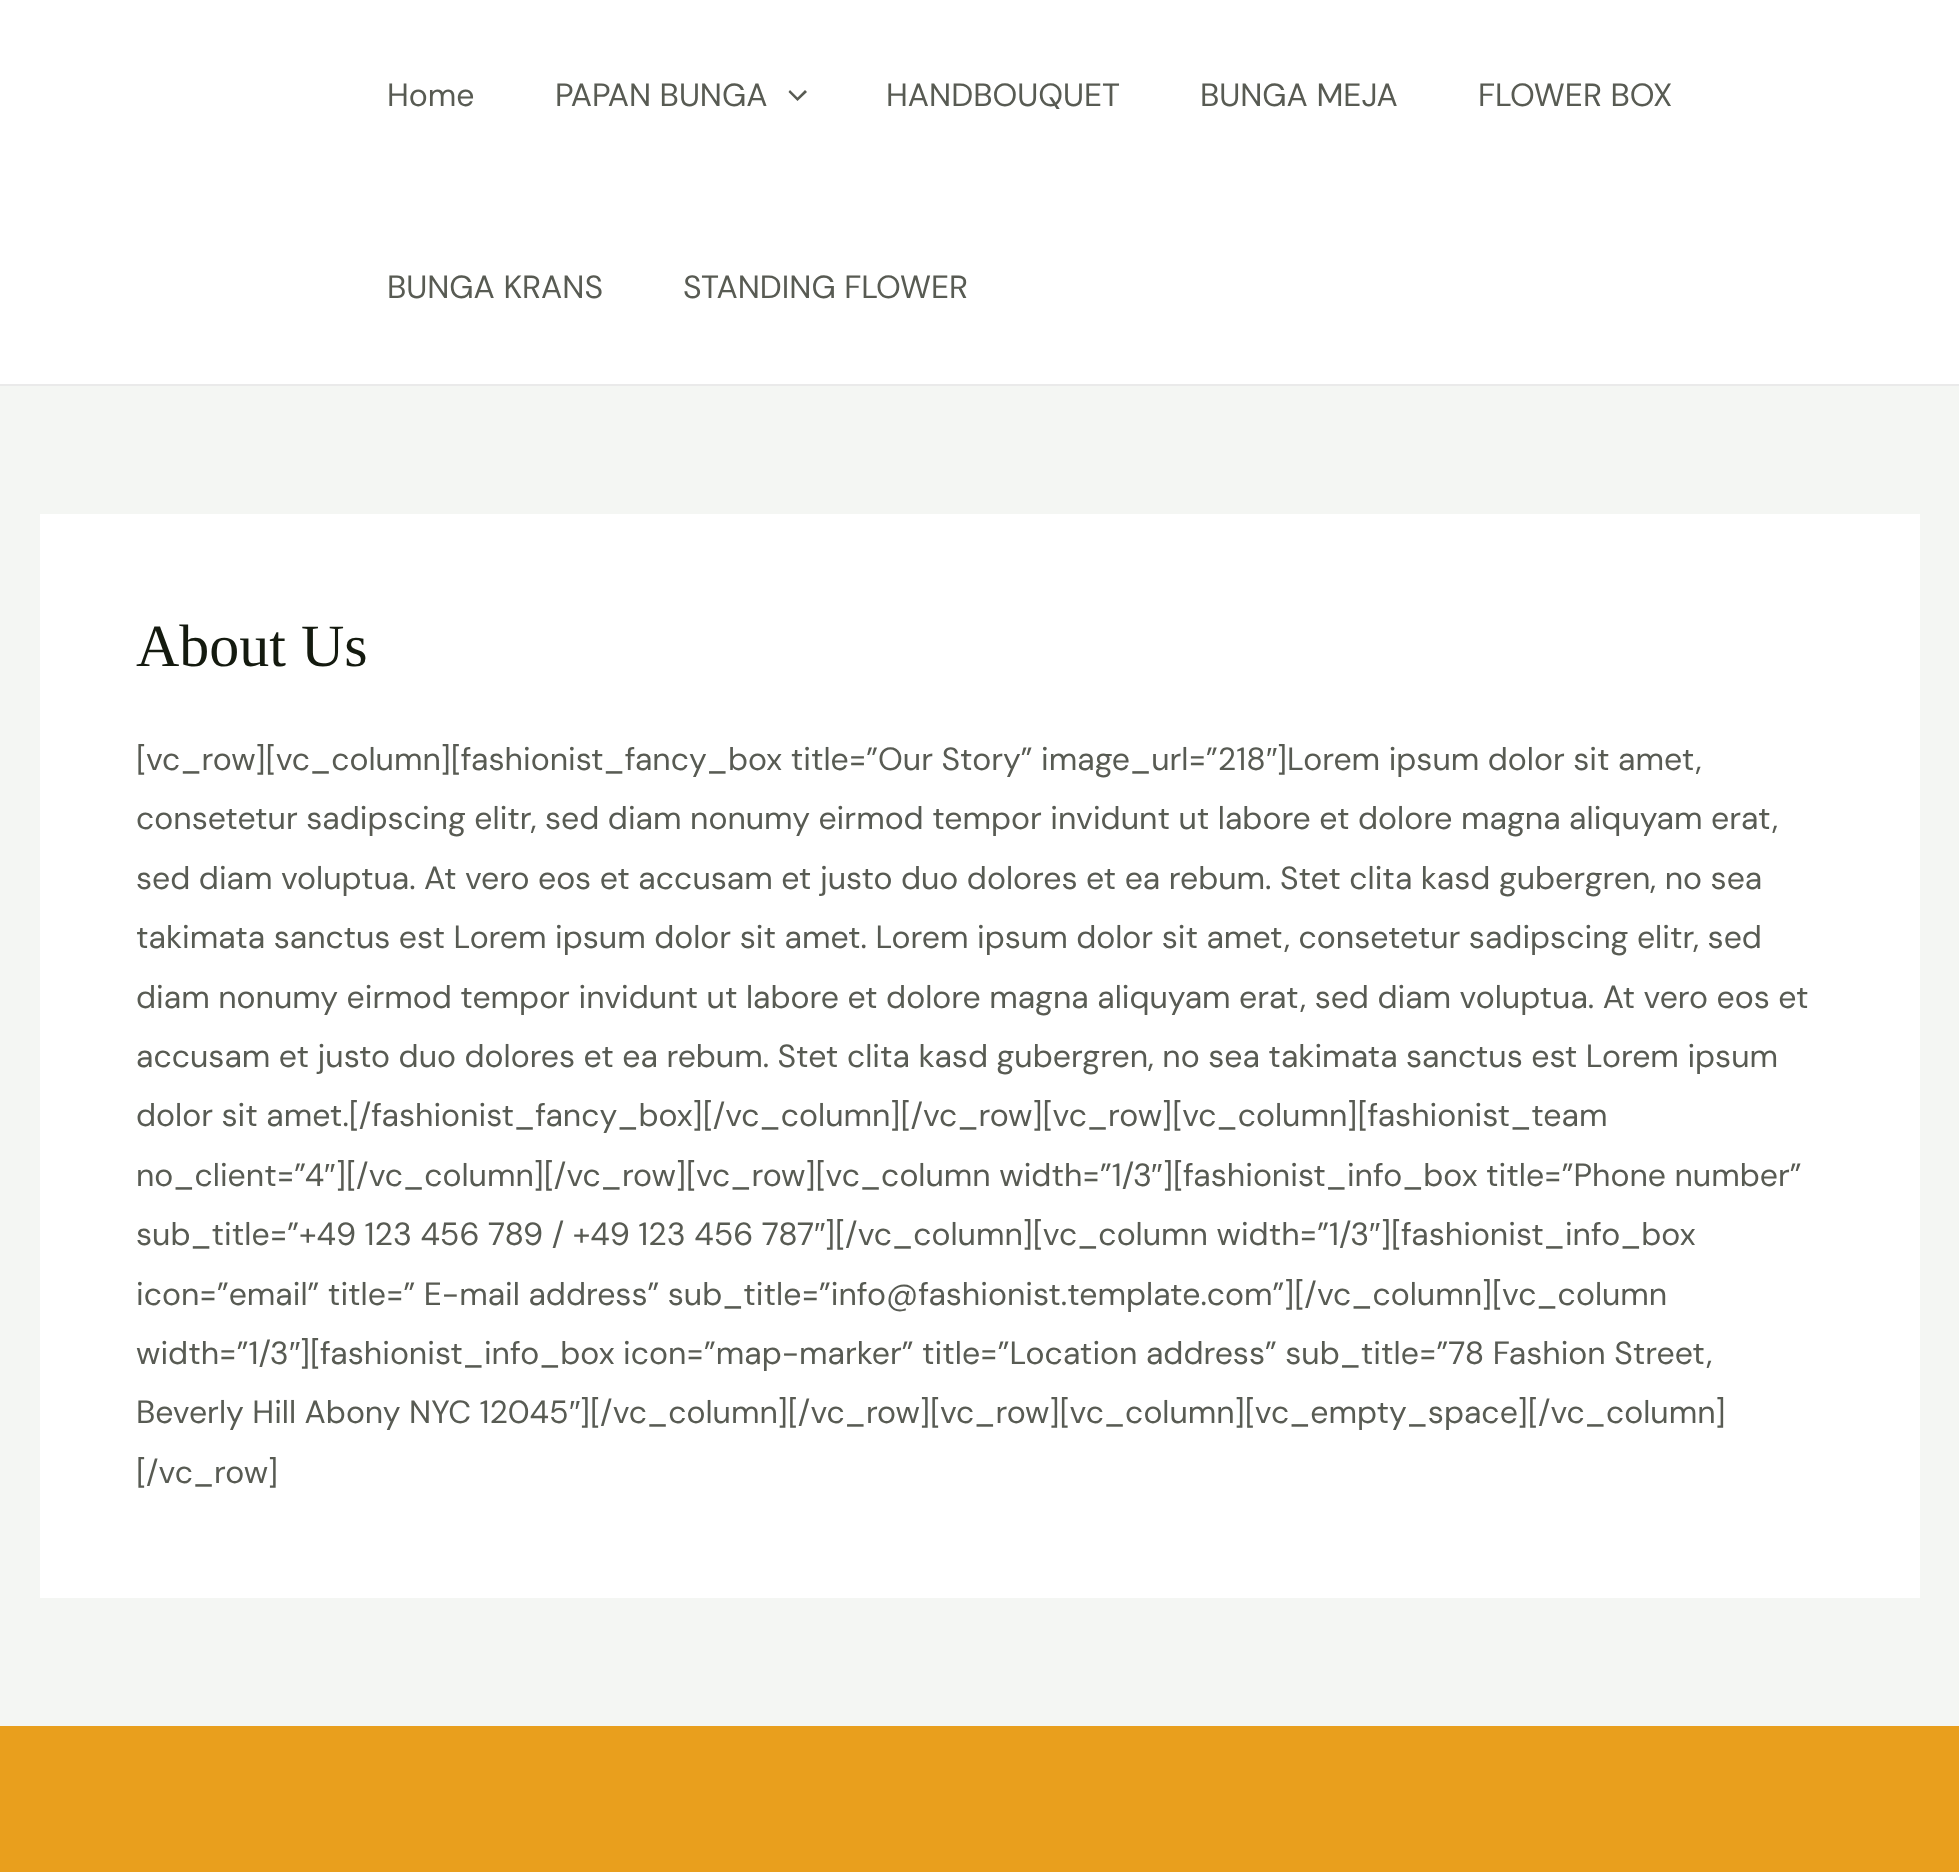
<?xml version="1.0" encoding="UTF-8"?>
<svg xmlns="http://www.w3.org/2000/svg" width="1959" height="1872">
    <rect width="100%" height="100%" fill="#F4F6F3"/>
    <rect x="0" y="0" width="1959" height="384" fill="#FFFFFF"/>
    <rect x="0" y="384" width="1959" height="2" fill="#EAEAEA"/>
    <text x="387" y="106" font-family="DM Sans" font-size="32" fill="#585B53">Home</text>
    <text x="555" y="106" font-family="DM Sans" font-size="32" fill="#585B53">PAPAN BUNGA</text>
    <path d="M 788.5 92 L 797.5 101 L 807 92 L 805 90 L 797.5 97.5 L 790 90 Z" fill="#585B53"/>
    <text x="886" y="106" font-family="DM Sans" font-size="32" fill="#585B53">HANDBOUQUET</text>
    <text x="1200" y="106" font-family="DM Sans" font-size="32" fill="#585B53">BUNGA MEJA</text>
    <text x="1478" y="106" font-family="DM Sans" font-size="32" fill="#585B53">FLOWER BOX</text>
    <text x="387" y="298" font-family="DM Sans" font-size="32" fill="#585B53">BUNGA KRANS</text>
    <text x="683" y="298" font-family="DM Sans" font-size="32" fill="#585B53">STANDING FLOWER</text>
    <rect x="40" y="514" width="1880" height="1084" fill="#FFFFFF"/>
    <text x="136" y="666" font-family="Liberation Serif" font-size="60" fill="#141A0F">About Us</text>
    <text x="136" y="770" font-family="DM Sans" font-size="32" fill="#585B53">[vc_row][vc_column][fashionist_fancy_box title=”Our Story” image_url=”218</text>
    <text x="1266" y="770" font-family="Liberation Sans" font-size="32" fill="#585B53">″</text>
    <text x="1277" y="770" font-family="DM Sans" font-size="32" fill="#585B53">]Lorem ipsum dolor sit amet,</text>
    <text font-family="DM Sans" font-size="32" fill="#585B53">
        <tspan x="136" y="829">consetetur sadipscing elitr, sed diam nonumy eirmod tempor invidunt ut labore et dolore magna aliquyam erat,</tspan>
        <tspan x="136" y="889">sed diam voluptua. At vero eos et accusam et justo duo dolores et ea rebum. Stet clita kasd gubergren, no sea</tspan>
        <tspan x="136" y="948">takimata sanctus est Lorem ipsum dolor sit amet. Lorem ipsum dolor sit amet, consetetur sadipscing elitr, sed</tspan>
        <tspan x="136" y="1008">diam nonumy eirmod tempor invidunt ut labore et dolore magna aliquyam erat, sed diam voluptua. At vero eos et</tspan>
        <tspan x="136" y="1067">accusam et justo duo dolores et ea rebum. Stet clita kasd gubergren, no sea takimata sanctus est Lorem ipsum</tspan>
        <tspan x="136" y="1126">dolor sit amet.[/fashionist_fancy_box][/vc_column][/vc_row][vc_row][vc_column][fashionist_team</tspan>
        <tspan x="136" y="1186">no_client=”4</tspan>
    </text>
    <text x="324" y="1186" font-family="Liberation Sans" font-size="32" fill="#585B53">″</text>
    <text x="336" y="1186" font-family="DM Sans" font-size="32" fill="#585B53">][/vc_column][/vc_row][vc_row][vc_column width=”1/3</text>
    <text x="1151" y="1186" font-family="Liberation Sans" font-size="32" fill="#585B53">″</text>
    <text x="1163" y="1186" font-family="DM Sans" font-size="32" fill="#585B53">][fashionist_info_box title=”Phone number”</text>
    <text x="136" y="1245" font-family="DM Sans" font-size="32" fill="#585B53">sub_title=”+49 123 456 789 / +49 123 456 787</text>
    <text x="814" y="1245" font-family="Liberation Sans" font-size="32" fill="#585B53">″</text>
    <text x="825" y="1245" font-family="DM Sans" font-size="32" fill="#585B53">][/vc_column][vc_column width=”1/3</text>
    <text x="1369" y="1245" font-family="Liberation Sans" font-size="32" fill="#585B53">″</text>
    <text x="1381" y="1245" font-family="DM Sans" font-size="32" fill="#585B53">][fashionist_info_box</text>
    <text font-family="DM Sans" font-size="32" fill="#585B53">
        <tspan x="136" y="1305">icon=”email” title=” E-mail address” sub_title=”info@fashionist.template.com”][/vc_column][vc_column</tspan>
        <tspan x="136" y="1364">width=”1/3</tspan>
    </text>
    <text x="289" y="1364" font-family="Liberation Sans" font-size="32" fill="#585B53">″</text>
    <text x="300" y="1364" font-family="DM Sans" font-size="32" fill="#585B53">][fashionist_info_box icon=”map-marker” title=”Location address” sub_title=”78 Fashion Street,</text>
    <text x="136" y="1423" font-family="DM Sans" font-size="32" fill="#585B53">Beverly Hill Abony NYC 12045</text>
    <text x="569" y="1423" font-family="Liberation Sans" font-size="32" fill="#585B53">″</text>
    <text x="580" y="1423" font-family="DM Sans" font-size="32" fill="#585B53">][/vc_column][/vc_row][vc_row][vc_column][vc_empty_space][/vc_column]</text>
    <text x="136" y="1483" font-family="DM Sans" font-size="32" fill="#585B53">[/vc_row]</text>
    <rect x="0" y="1726" width="1959" height="146" fill="#E99F1D"/>
</svg>
